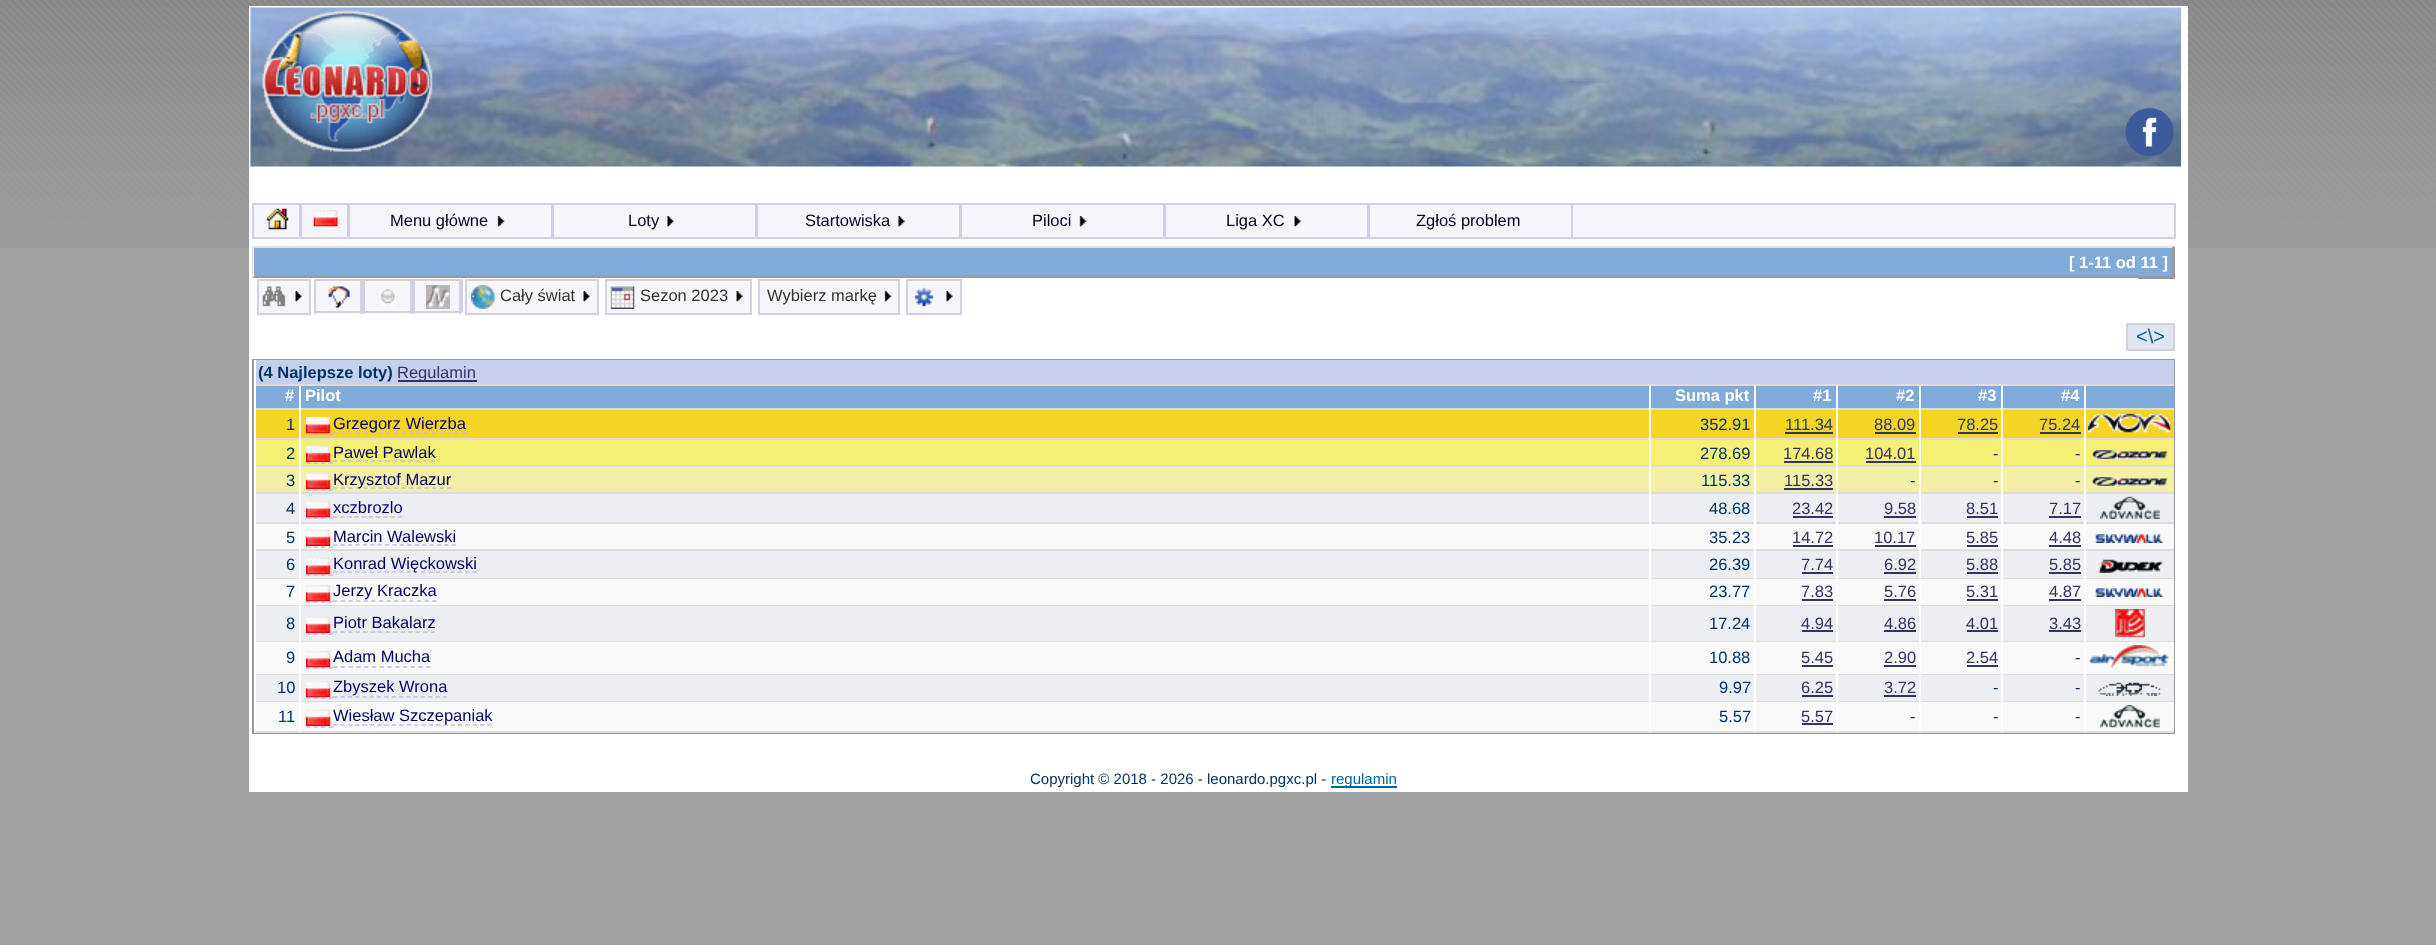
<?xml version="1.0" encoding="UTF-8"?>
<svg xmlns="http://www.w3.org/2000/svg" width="2436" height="945">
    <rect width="100%" height="100%" fill="#A1A1A1"/>
    <image x="0" y="0" width="2436" height="248" href="img_01.png"/>
    <rect x="249" y="6" width="1939" height="786" fill="#FFFFFF"/>
    <image x="250" y="7" width="1931" height="160" href="img_02.png"/>
    <image x="262" y="10" width="171" height="142" href="img_03.png"/>
    <image x="2125" y="108" width="49" height="48" href="img_04.png"/>
    <rect x="254" y="205" width="1920" height="32" fill="#F6F5FA"/>
    <rect x="252" y="203" width="1923" height="2" fill="#D3CFE4"/>
    <rect x="2174" y="203" width="2" height="36" fill="#D3CFE4"/>
    <rect x="252" y="237" width="1923" height="2" fill="#D3CFE4"/>
    <rect x="299" y="204" width="3" height="33" fill="#D3CFE4"/>
    <rect x="252" y="204" width="2" height="33" fill="#D3CFE4"/>
    <image x="266" y="208" width="23" height="22" href="img_05.png"/>
    <rect x="347" y="204" width="3" height="33" fill="#D3CFE4"/>
    <image x="313" y="210" width="25" height="17" href="img_06.png"/>
    <rect x="551" y="204" width="3" height="33" fill="#D3CFE4"/>
    <text x="390" y="226" font-family="Liberation Sans" font-size="16.5" fill="#000022">Menu główne</text>
    <image x="497" y="216" width="8" height="11" href="img_07.png"/>
    <rect x="755" y="204" width="3" height="33" fill="#D3CFE4"/>
    <text x="628" y="226" font-family="Liberation Sans" font-size="16.5" fill="#000022">Loty</text>
    <image x="667" y="216" width="7" height="11" href="img_08.png"/>
    <rect x="959" y="204" width="3" height="33" fill="#D3CFE4"/>
    <text x="805" y="226" font-family="Liberation Sans" font-size="16.5" fill="#000022">Startowiska</text>
    <image x="898" y="216" width="7" height="11" href="img_08.png"/>
    <rect x="1163" y="204" width="3" height="33" fill="#D3CFE4"/>
    <text x="1032" y="226" font-family="Liberation Sans" font-size="16.5" fill="#000022">Piloci</text>
    <image x="1079" y="216" width="8" height="11" href="img_07.png"/>
    <rect x="1367" y="204" width="3" height="33" fill="#D3CFE4"/>
    <text x="1226" y="226" font-family="Liberation Sans" font-size="16.5" fill="#000022">Liga XC</text>
    <image x="1294" y="216" width="7" height="11" href="img_09.png"/>
    <rect x="1571" y="204" width="2" height="33" fill="#D3CFE4"/>
    <text x="1416" y="226" font-family="Liberation Sans" font-size="16.5" fill="#000022">Zgłoś problem</text>
    <rect x="254" y="248" width="1918" height="28" fill="#7FAAD9"/>
    <path d="M 252 246 H 2175 L 2172 248 H 254 Z" fill="#E2E2E2"/>
    <path d="M 2175 246 V 279 L 2172 276 V 247.5 Z" fill="#999999"/>
    <path d="M 2175 279 H 252 L 254 276 H 2172 Z" fill="#999999"/>
    <path d="M 252 279 V 246 L 253.5 247.5 V 276 Z" fill="#E2E2E2"/>
    <text x="2069" y="268" font-family="Liberation Sans" font-size="16.5" font-weight="700" fill="#FFFFFF">[ 1-11 od 11 ]</text>
    <rect x="252" y="278" width="1886" height="1" fill="#FFFFFF"/>
    <rect x="258" y="280" width="52" height="34" fill="#F6F5FA" stroke="#D3CFE4" stroke-width="2"/>
    <image x="262" y="286" width="24" height="21" href="img_10.png"/>
    <image x="295" y="291" width="7" height="11" href="img_09.png"/>
    <rect x="316" y="281" width="44" height="30" fill="#F6F5FA"/>
    <rect x="314" y="279" width="148" height="2" fill="#D3CFE4"/>
    <rect x="362" y="279" width="1" height="33" fill="#D3CFE4"/>
    <rect x="314" y="311" width="49" height="2" fill="#D3CFE4"/>
    <rect x="360" y="281" width="2" height="33" fill="#D3CFE4"/>
    <rect x="314" y="281" width="2" height="33" fill="#D3CFE4"/>
    <image x="328" y="286" width="22" height="22" href="img_11.png"/>
    <rect x="365" y="281" width="45" height="30" fill="#F6F5FA"/>
    <rect x="411" y="279" width="2" height="33" fill="#D3CFE4"/>
    <rect x="363" y="311" width="50" height="2" fill="#D3CFE4"/>
    <rect x="410" y="281" width="2" height="33" fill="#D3CFE4"/>
    <rect x="363" y="281" width="2" height="33" fill="#D3CFE4"/>
    <image x="380" y="289" width="16" height="17" href="img_12.png"/>
    <rect x="415" y="281" width="44" height="30" fill="#F6F5FA"/>
    <rect x="461" y="279" width="2" height="33" fill="#D3CFE4"/>
    <rect x="413" y="311" width="49" height="2" fill="#D3CFE4"/>
    <rect x="459" y="281" width="2" height="33" fill="#D3CFE4"/>
    <rect x="413" y="281" width="2" height="33" fill="#D3CFE4"/>
    <image x="426" y="285" width="24" height="24" href="img_13.png"/>
    <rect x="466" y="280" width="132" height="34" fill="#F6F5FA" stroke="#D3CFE4" stroke-width="2"/>
    <image x="471" y="285" width="24" height="24" href="img_14.png"/>
    <text x="500" y="301" font-family="Liberation Sans" font-size="16.5" fill="#333333">Cały świat</text>
    <image x="583" y="291" width="7" height="11" href="img_09.png"/>
    <rect x="606" y="280" width="145" height="34" fill="#F6F5FA" stroke="#D3CFE4" stroke-width="2"/>
    <image x="610" y="285" width="25" height="24" href="img_15.png"/>
    <text x="640" y="301" font-family="Liberation Sans" font-size="16.5" fill="#333333">Sezon 2023</text>
    <image x="736" y="291" width="7" height="11" href="img_09.png"/>
    <rect x="759" y="280" width="140" height="34" fill="#F6F5FA" stroke="#D3CFE4" stroke-width="2"/>
    <text x="767" y="301" font-family="Liberation Sans" font-size="16.5" fill="#333333">Wybierz markę</text>
    <image x="884" y="291" width="8" height="11" href="img_07.png"/>
    <rect x="907" y="280" width="54" height="34" fill="#F6F5FA" stroke="#D3CFE4" stroke-width="2"/>
    <image x="914" y="287" width="20" height="20" href="img_16.png"/>
    <image x="946" y="291" width="7" height="11" href="img_08.png"/>
    <rect x="2127" y="324" width="47" height="26" fill="#E1E6F3" stroke="#D3CFE4" stroke-width="2"/>
    <text x="2136" y="343" font-family="Liberation Sans" font-size="20" fill="#006699">&lt;\&gt;</text>
    <rect x="253" y="360" width="1921" height="373" fill="none" stroke="#999999" stroke-width="2"/>
    <rect x="256" y="360" width="1918" height="24" fill="#C5D0ED"/>
    <rect x="254" y="384" width="1920" height="2" fill="#DDDDDD"/>
    <rect x="254" y="360" width="2" height="26" fill="#FFFFFF"/>
    <text x="258" y="378" font-family="Liberation Sans" font-size="16.5" font-weight="700" fill="#003366">(4 Najlepsze loty)</text>
    <rect x="398" y="380" width="79" height="2" fill="#333366"/>
    <text x="397" y="378" font-family="Liberation Sans" font-size="16.5" fill="#333366">Regulamin</text>
    <rect x="256" y="386" width="43" height="22" fill="#7FAAD9"/>
    <rect x="254" y="408" width="1920" height="2" fill="#DDDDDD"/>
    <rect x="254" y="408" width="2" height="2" fill="#FFFFFF"/>
    <text x="285" y="401" font-family="Liberation Sans" font-size="16.5" font-weight="700" fill="#FFFFFF">#</text>
    <rect x="301" y="386" width="1348" height="22" fill="#7FAAD9"/>
    <rect x="299" y="408" width="2" height="2" fill="#FFFFFF"/>
    <text x="305" y="401" font-family="Liberation Sans" font-size="16.5" font-weight="700" fill="#FFFFFF">Pilot</text>
    <rect x="1651" y="386" width="103" height="22" fill="#7FAAD9"/>
    <rect x="1649" y="408" width="2" height="2" fill="#FFFFFF"/>
    <text x="1675" y="401" font-family="Liberation Sans" font-size="16.5" font-weight="700" fill="#FFFFFF">Suma pkt</text>
    <rect x="1756" y="386" width="80" height="22" fill="#7FAAD9"/>
    <rect x="1754" y="408" width="2" height="2" fill="#FFFFFF"/>
    <text x="1813" y="401" font-family="Liberation Sans" font-size="16.5" font-weight="700" fill="#FFFFFF">#1</text>
    <rect x="1838" y="386" width="81" height="22" fill="#7FAAD9"/>
    <rect x="1836" y="408" width="2" height="2" fill="#FFFFFF"/>
    <text x="1896" y="401" font-family="Liberation Sans" font-size="16.5" font-weight="700" fill="#FFFFFF">#2</text>
    <rect x="1921" y="386" width="80" height="22" fill="#7FAAD9"/>
    <rect x="1919" y="408" width="2" height="2" fill="#FFFFFF"/>
    <text x="1978" y="401" font-family="Liberation Sans" font-size="16.5" font-weight="700" fill="#FFFFFF">#3</text>
    <rect x="2003" y="386" width="81" height="22" fill="#7FAAD9"/>
    <rect x="2001" y="408" width="2" height="2" fill="#FFFFFF"/>
    <text x="2061" y="401" font-family="Liberation Sans" font-size="16.5" font-weight="700" fill="#FFFFFF">#4</text>
    <rect x="2086" y="386" width="88" height="22" fill="#7FAAD9"/>
    <rect x="2084" y="408" width="2" height="2" fill="#FFFFFF"/>
    <rect x="256" y="410" width="1918" height="28" fill="#F5D523"/>
    <rect x="254" y="438" width="1920" height="2" fill="#DDDDDD"/>
    <rect x="254" y="438" width="2" height="2" fill="#FFFFFF"/>
    <text x="286" y="430" font-family="Liberation Sans" font-size="16.5" fill="#003366">1</text>
    <rect x="299" y="410" width="2" height="30" fill="#FFFFFF"/>
    <path d="M 306 434 H 333" fill="none" stroke="#BEC0E2" stroke-width="1.5" stroke-dasharray="4.5 3"/>
    <path d="M 333 433 H 466.5" fill="none" stroke="#BEC0E2" stroke-width="1.5" stroke-dasharray="4.5 3.09"/>
    <image x="306" y="417" width="25" height="17" href="img_17.png"/>
    <text x="333" y="429" font-family="Liberation Sans" font-size="16.5" fill="#000066">Grzegorz Wierzba</text>
    <rect x="1649" y="410" width="2" height="30" fill="#FFFFFF"/>
    <text x="1700" y="430" font-family="Liberation Sans" font-size="16.5" fill="#003366">352.91</text>
    <rect x="1754" y="410" width="2" height="30" fill="#FFFFFF"/>
    <text x="1785" y="430" font-family="Liberation Sans" font-size="16.5" fill="#333366">111.34</text>
    <rect x="1785" y="432" width="48" height="2" fill="#333366"/>
    <rect x="1836" y="410" width="2" height="30" fill="#FFFFFF"/>
    <text x="1874" y="430" font-family="Liberation Sans" font-size="16.5" fill="#333366">88.09</text>
    <rect x="1875" y="432" width="41" height="2" fill="#333366"/>
    <rect x="1919" y="410" width="2" height="30" fill="#FFFFFF"/>
    <text x="1957" y="430" font-family="Liberation Sans" font-size="16.5" fill="#333366">78.25</text>
    <rect x="1958" y="432" width="40" height="2" fill="#333366"/>
    <rect x="2001" y="410" width="2" height="30" fill="#FFFFFF"/>
    <text x="2039" y="430" font-family="Liberation Sans" font-size="16.5" fill="#333366">75.24</text>
    <rect x="2040" y="432" width="41" height="2" fill="#333366"/>
    <rect x="2084" y="410" width="2" height="30" fill="#FFFFFF"/>
    <image x="2088" y="413" width="83" height="20" href="img_18.png"/>
    <rect x="256" y="440" width="1918" height="25" fill="#F5F073"/>
    <rect x="254" y="465" width="1920" height="2" fill="#DDDDDD"/>
    <rect x="254" y="465" width="2" height="2" fill="#FFFFFF"/>
    <text x="286" y="459" font-family="Liberation Sans" font-size="16.5" fill="#003366">2</text>
    <rect x="299" y="440" width="2" height="27" fill="#FFFFFF"/>
    <path d="M 306 463 H 333" fill="none" stroke="#BEC0E2" stroke-width="1.5" stroke-dasharray="4.5 3"/>
    <path d="M 333 461 H 435" fill="none" stroke="#BEC0E2" stroke-width="1.5" stroke-dasharray="4.5 3"/>
    <image x="306" y="445" width="25" height="17" href="img_19.png"/>
    <text x="333" y="458" font-family="Liberation Sans" font-size="16.5" fill="#000066">Paweł Pawlak</text>
    <rect x="1649" y="440" width="2" height="27" fill="#FFFFFF"/>
    <text x="1700" y="459" font-family="Liberation Sans" font-size="16.5" fill="#003366">278.69</text>
    <rect x="1754" y="440" width="2" height="27" fill="#FFFFFF"/>
    <text x="1783" y="459" font-family="Liberation Sans" font-size="16.5" fill="#333366">174.68</text>
    <rect x="1784" y="461" width="49" height="2" fill="#333366"/>
    <rect x="1836" y="440" width="2" height="27" fill="#FFFFFF"/>
    <text x="1865" y="459" font-family="Liberation Sans" font-size="16.5" fill="#333366">104.01</text>
    <rect x="1866" y="461" width="50" height="2" fill="#333366"/>
    <rect x="1919" y="440" width="2" height="27" fill="#FFFFFF"/>
    <text x="1993" y="459" font-family="Liberation Sans" font-size="16.5" fill="#003366">-</text>
    <rect x="2001" y="440" width="2" height="27" fill="#FFFFFF"/>
    <text x="2075" y="459" font-family="Liberation Sans" font-size="16.5" fill="#003366">-</text>
    <rect x="2084" y="440" width="2" height="27" fill="#FFFFFF"/>
    <image x="2092" y="450" width="76" height="9" href="img_20.png"/>
    <rect x="256" y="467" width="1918" height="25" fill="#F3F0A5"/>
    <rect x="254" y="492" width="1920" height="2" fill="#DDDDDD"/>
    <rect x="254" y="492" width="2" height="2" fill="#FFFFFF"/>
    <text x="286" y="486" font-family="Liberation Sans" font-size="16.5" fill="#003366">3</text>
    <rect x="299" y="467" width="2" height="27" fill="#FFFFFF"/>
    <path d="M 306 490 H 333" fill="none" stroke="#BEC0E2" stroke-width="1.5" stroke-dasharray="4.5 3"/>
    <path d="M 333 488 H 451.5" fill="none" stroke="#BEC0E2" stroke-width="1.5" stroke-dasharray="4.5 3.1"/>
    <image x="306" y="472" width="25" height="17" href="img_21.png"/>
    <text x="333" y="485" font-family="Liberation Sans" font-size="16.5" fill="#000066">Krzysztof Mazur</text>
    <rect x="1649" y="467" width="2" height="27" fill="#FFFFFF"/>
    <text x="1701" y="486" font-family="Liberation Sans" font-size="16.5" fill="#003366">115.33</text>
    <rect x="1754" y="467" width="2" height="27" fill="#FFFFFF"/>
    <text x="1784" y="486" font-family="Liberation Sans" font-size="16.5" fill="#333366">115.33</text>
    <rect x="1784" y="488" width="49" height="2" fill="#333366"/>
    <rect x="1836" y="467" width="2" height="27" fill="#FFFFFF"/>
    <text x="1910" y="486" font-family="Liberation Sans" font-size="16.5" fill="#003366">-</text>
    <rect x="1919" y="467" width="2" height="27" fill="#FFFFFF"/>
    <text x="1993" y="486" font-family="Liberation Sans" font-size="16.5" fill="#003366">-</text>
    <rect x="2001" y="467" width="2" height="27" fill="#FFFFFF"/>
    <text x="2075" y="486" font-family="Liberation Sans" font-size="16.5" fill="#003366">-</text>
    <rect x="2084" y="467" width="2" height="27" fill="#FFFFFF"/>
    <image x="2092" y="477" width="76" height="9" href="img_22.png"/>
    <rect x="256" y="494" width="1918" height="28" fill="#EDEEF1"/>
    <rect x="254" y="522" width="1920" height="2" fill="#DDDDDD"/>
    <rect x="254" y="522" width="2" height="2" fill="#FFFFFF"/>
    <text x="286" y="514" font-family="Liberation Sans" font-size="16.5" fill="#003366">4</text>
    <rect x="299" y="494" width="2" height="30" fill="#FFFFFF"/>
    <path d="M 306 518 H 333" fill="none" stroke="#BEC0E2" stroke-width="1.5" stroke-dasharray="4.5 3"/>
    <path d="M 333 517 H 402" fill="none" stroke="#BEC0E2" stroke-width="1.5" stroke-dasharray="4.5 2.67"/>
    <image x="306" y="501" width="25" height="17" href="img_23.png"/>
    <text x="333" y="513" font-family="Liberation Sans" font-size="16.5" fill="#000066">xczbrozlo</text>
    <rect x="1649" y="494" width="2" height="30" fill="#FFFFFF"/>
    <text x="1709" y="514" font-family="Liberation Sans" font-size="16.5" fill="#003366">48.68</text>
    <rect x="1754" y="494" width="2" height="30" fill="#FFFFFF"/>
    <text x="1792" y="514" font-family="Liberation Sans" font-size="16.5" fill="#333366">23.42</text>
    <rect x="1793" y="516" width="40" height="2" fill="#333366"/>
    <rect x="1836" y="494" width="2" height="30" fill="#FFFFFF"/>
    <text x="1884" y="514" font-family="Liberation Sans" font-size="16.5" fill="#333366">9.58</text>
    <rect x="1884" y="516" width="32" height="2" fill="#333366"/>
    <rect x="1919" y="494" width="2" height="30" fill="#FFFFFF"/>
    <text x="1966" y="514" font-family="Liberation Sans" font-size="16.5" fill="#333366">8.51</text>
    <rect x="1967" y="516" width="31" height="2" fill="#333366"/>
    <rect x="2001" y="494" width="2" height="30" fill="#FFFFFF"/>
    <text x="2049" y="514" font-family="Liberation Sans" font-size="16.5" fill="#333366">7.17</text>
    <rect x="2049" y="516" width="32" height="2" fill="#333366"/>
    <rect x="2084" y="494" width="2" height="30" fill="#FFFFFF"/>
    <image x="2100" y="496" width="60" height="23" href="img_24.png"/>
    <rect x="256" y="524" width="1918" height="25" fill="#F9F9F9"/>
    <rect x="254" y="549" width="1920" height="2" fill="#DDDDDD"/>
    <rect x="254" y="549" width="2" height="2" fill="#FFFFFF"/>
    <text x="286" y="543" font-family="Liberation Sans" font-size="16.5" fill="#003366">5</text>
    <rect x="299" y="524" width="2" height="27" fill="#FFFFFF"/>
    <path d="M 306 547 H 333" fill="none" stroke="#BEC0E2" stroke-width="1.5" stroke-dasharray="4.5 3"/>
    <path d="M 333 545 H 456" fill="none" stroke="#BEC0E2" stroke-width="1.5" stroke-dasharray="4.5 2.91"/>
    <image x="306" y="529" width="25" height="17" href="img_25.png"/>
    <text x="333" y="542" font-family="Liberation Sans" font-size="16.5" fill="#000066">Marcin Walewski</text>
    <rect x="1649" y="524" width="2" height="27" fill="#FFFFFF"/>
    <text x="1709" y="543" font-family="Liberation Sans" font-size="16.5" fill="#003366">35.23</text>
    <rect x="1754" y="524" width="2" height="27" fill="#FFFFFF"/>
    <text x="1792" y="543" font-family="Liberation Sans" font-size="16.5" fill="#333366">14.72</text>
    <rect x="1793" y="545" width="40" height="2" fill="#333366"/>
    <rect x="1836" y="524" width="2" height="27" fill="#FFFFFF"/>
    <text x="1874" y="543" font-family="Liberation Sans" font-size="16.5" fill="#333366">10.17</text>
    <rect x="1875" y="545" width="41" height="2" fill="#333366"/>
    <rect x="1919" y="524" width="2" height="27" fill="#FFFFFF"/>
    <text x="1966" y="543" font-family="Liberation Sans" font-size="16.5" fill="#333366">5.85</text>
    <rect x="1967" y="545" width="31" height="2" fill="#333366"/>
    <rect x="2001" y="524" width="2" height="27" fill="#FFFFFF"/>
    <text x="2049" y="543" font-family="Liberation Sans" font-size="16.5" fill="#333366">4.48</text>
    <rect x="2049" y="545" width="32" height="2" fill="#333366"/>
    <rect x="2084" y="524" width="2" height="27" fill="#FFFFFF"/>
    <image x="2095" y="534" width="68" height="9" href="img_26.png"/>
    <rect x="256" y="551" width="1918" height="27" fill="#EDEEF1"/>
    <rect x="254" y="578" width="1920" height="1" fill="#DDDDDD"/>
    <rect x="254" y="578" width="2" height="1" fill="#FFFFFF"/>
    <text x="286" y="570" font-family="Liberation Sans" font-size="16.5" fill="#003366">6</text>
    <rect x="299" y="551" width="2" height="28" fill="#FFFFFF"/>
    <path d="M 306 575 H 333" fill="none" stroke="#BEC0E2" stroke-width="1.5" stroke-dasharray="4.5 3"/>
    <path d="M 333 572 H 477" fill="none" stroke="#BEC0E2" stroke-width="1.5" stroke-dasharray="4.5 2.83"/>
    <image x="306" y="558" width="25" height="17" href="img_23.png"/>
    <text x="333" y="569" font-family="Liberation Sans" font-size="16.5" fill="#000066">Konrad Więckowski</text>
    <rect x="1649" y="551" width="2" height="28" fill="#FFFFFF"/>
    <text x="1709" y="570" font-family="Liberation Sans" font-size="16.5" fill="#003366">26.39</text>
    <rect x="1754" y="551" width="2" height="28" fill="#FFFFFF"/>
    <text x="1801" y="570" font-family="Liberation Sans" font-size="16.5" fill="#333366">7.74</text>
    <rect x="1802" y="572" width="31" height="2" fill="#333366"/>
    <rect x="1836" y="551" width="2" height="28" fill="#FFFFFF"/>
    <text x="1884" y="570" font-family="Liberation Sans" font-size="16.5" fill="#333366">6.92</text>
    <rect x="1884" y="572" width="32" height="2" fill="#333366"/>
    <rect x="1919" y="551" width="2" height="28" fill="#FFFFFF"/>
    <text x="1966" y="570" font-family="Liberation Sans" font-size="16.5" fill="#333366">5.88</text>
    <rect x="1967" y="572" width="31" height="2" fill="#333366"/>
    <rect x="2001" y="551" width="2" height="28" fill="#FFFFFF"/>
    <text x="2049" y="570" font-family="Liberation Sans" font-size="16.5" fill="#333366">5.85</text>
    <rect x="2049" y="572" width="32" height="2" fill="#333366"/>
    <rect x="2084" y="551" width="2" height="28" fill="#FFFFFF"/>
    <image x="2095" y="559" width="68" height="14" href="img_27.png"/>
    <rect x="256" y="579" width="1918" height="26" fill="#F9F9F9"/>
    <rect x="254" y="605" width="1920" height="1" fill="#DDDDDD"/>
    <rect x="254" y="605" width="2" height="1" fill="#FFFFFF"/>
    <text x="286" y="597" font-family="Liberation Sans" font-size="16.5" fill="#003366">7</text>
    <rect x="299" y="579" width="2" height="27" fill="#FFFFFF"/>
    <path d="M 306 602 H 333" fill="none" stroke="#BEC0E2" stroke-width="1.5" stroke-dasharray="4.5 3"/>
    <path d="M 333 601 H 436.5" fill="none" stroke="#BEC0E2" stroke-width="1.5" stroke-dasharray="4.5 3.12"/>
    <image x="306" y="585" width="25" height="17" href="img_28.png"/>
    <text x="333" y="596" font-family="Liberation Sans" font-size="16.5" fill="#000066">Jerzy Kraczka</text>
    <rect x="1649" y="579" width="2" height="27" fill="#FFFFFF"/>
    <text x="1709" y="597" font-family="Liberation Sans" font-size="16.5" fill="#003366">23.77</text>
    <rect x="1754" y="579" width="2" height="27" fill="#FFFFFF"/>
    <text x="1801" y="597" font-family="Liberation Sans" font-size="16.5" fill="#333366">7.83</text>
    <rect x="1802" y="599" width="31" height="2" fill="#333366"/>
    <rect x="1836" y="579" width="2" height="27" fill="#FFFFFF"/>
    <text x="1884" y="597" font-family="Liberation Sans" font-size="16.5" fill="#333366">5.76</text>
    <rect x="1884" y="599" width="32" height="2" fill="#333366"/>
    <rect x="1919" y="579" width="2" height="27" fill="#FFFFFF"/>
    <text x="1966" y="597" font-family="Liberation Sans" font-size="16.5" fill="#333366">5.31</text>
    <rect x="1967" y="599" width="31" height="2" fill="#333366"/>
    <rect x="2001" y="579" width="2" height="27" fill="#FFFFFF"/>
    <text x="2049" y="597" font-family="Liberation Sans" font-size="16.5" fill="#333366">4.87</text>
    <rect x="2049" y="599" width="32" height="2" fill="#333366"/>
    <rect x="2084" y="579" width="2" height="27" fill="#FFFFFF"/>
    <image x="2095" y="588" width="68" height="9" href="img_26.png"/>
    <rect x="256" y="606" width="1918" height="35" fill="#EDEEF1"/>
    <rect x="254" y="641" width="1920" height="1" fill="#DDDDDD"/>
    <rect x="254" y="641" width="2" height="1" fill="#FFFFFF"/>
    <text x="286" y="629" font-family="Liberation Sans" font-size="16.5" fill="#003366">8</text>
    <rect x="299" y="606" width="2" height="36" fill="#FFFFFF"/>
    <path d="M 306 634 H 333" fill="none" stroke="#BEC0E2" stroke-width="1.5" stroke-dasharray="4.5 3"/>
    <path d="M 333 632 H 435" fill="none" stroke="#BEC0E2" stroke-width="1.5" stroke-dasharray="4.5 3"/>
    <image x="306" y="616" width="25" height="17" href="img_29.png"/>
    <text x="333" y="628" font-family="Liberation Sans" font-size="16.5" fill="#000066">Piotr Bakalarz</text>
    <rect x="1649" y="606" width="2" height="36" fill="#FFFFFF"/>
    <text x="1709" y="629" font-family="Liberation Sans" font-size="16.5" fill="#003366">17.24</text>
    <rect x="1754" y="606" width="2" height="36" fill="#FFFFFF"/>
    <text x="1801" y="629" font-family="Liberation Sans" font-size="16.5" fill="#333366">4.94</text>
    <rect x="1802" y="630" width="31" height="2" fill="#333366"/>
    <rect x="1836" y="606" width="2" height="36" fill="#FFFFFF"/>
    <text x="1884" y="629" font-family="Liberation Sans" font-size="16.5" fill="#333366">4.86</text>
    <rect x="1884" y="630" width="32" height="2" fill="#333366"/>
    <rect x="1919" y="606" width="2" height="36" fill="#FFFFFF"/>
    <text x="1966" y="629" font-family="Liberation Sans" font-size="16.5" fill="#333366">4.01</text>
    <rect x="1967" y="630" width="31" height="2" fill="#333366"/>
    <rect x="2001" y="606" width="2" height="36" fill="#FFFFFF"/>
    <text x="2049" y="629" font-family="Liberation Sans" font-size="16.5" fill="#333366">3.43</text>
    <rect x="2049" y="630" width="32" height="2" fill="#333366"/>
    <rect x="2084" y="606" width="2" height="36" fill="#FFFFFF"/>
    <image x="2115" y="609" width="30" height="29" href="img_30.png"/>
    <rect x="256" y="642" width="1918" height="32" fill="#F9F9F9"/>
    <rect x="254" y="674" width="1920" height="1" fill="#DDDDDD"/>
    <rect x="254" y="674" width="2" height="1" fill="#FFFFFF"/>
    <text x="286" y="663" font-family="Liberation Sans" font-size="16.5" fill="#003366">9</text>
    <rect x="299" y="642" width="2" height="33" fill="#FFFFFF"/>
    <path d="M 306 668 H 333" fill="none" stroke="#BEC0E2" stroke-width="1.5" stroke-dasharray="4.5 3"/>
    <path d="M 333 667 H 430.5" fill="none" stroke="#BEC0E2" stroke-width="1.5" stroke-dasharray="4.5 3.25"/>
    <image x="306" y="651" width="25" height="17" href="img_28.png"/>
    <text x="333" y="662" font-family="Liberation Sans" font-size="16.5" fill="#000066">Adam Mucha</text>
    <rect x="1649" y="642" width="2" height="33" fill="#FFFFFF"/>
    <text x="1709" y="663" font-family="Liberation Sans" font-size="16.5" fill="#003366">10.88</text>
    <rect x="1754" y="642" width="2" height="33" fill="#FFFFFF"/>
    <text x="1801" y="663" font-family="Liberation Sans" font-size="16.5" fill="#333366">5.45</text>
    <rect x="1802" y="665" width="31" height="2" fill="#333366"/>
    <rect x="1836" y="642" width="2" height="33" fill="#FFFFFF"/>
    <text x="1884" y="663" font-family="Liberation Sans" font-size="16.5" fill="#333366">2.90</text>
    <rect x="1884" y="665" width="32" height="2" fill="#333366"/>
    <rect x="1919" y="642" width="2" height="33" fill="#FFFFFF"/>
    <text x="1966" y="663" font-family="Liberation Sans" font-size="16.5" fill="#333366">2.54</text>
    <rect x="1967" y="665" width="31" height="2" fill="#333366"/>
    <rect x="2001" y="642" width="2" height="33" fill="#FFFFFF"/>
    <text x="2075" y="663" font-family="Liberation Sans" font-size="16.5" fill="#003366">-</text>
    <rect x="2084" y="642" width="2" height="33" fill="#FFFFFF"/>
    <image x="2089" y="645" width="81" height="24" href="img_31.png"/>
    <rect x="256" y="675" width="1918" height="26" fill="#EDEEF1"/>
    <rect x="254" y="701" width="1920" height="1" fill="#DDDDDD"/>
    <rect x="254" y="701" width="2" height="1" fill="#FFFFFF"/>
    <text x="277" y="693" font-family="Liberation Sans" font-size="16.5" fill="#003366">10</text>
    <rect x="299" y="675" width="2" height="27" fill="#FFFFFF"/>
    <path d="M 306 698 H 333" fill="none" stroke="#BEC0E2" stroke-width="1.5" stroke-dasharray="4.5 3"/>
    <path d="M 333 697 H 447" fill="none" stroke="#BEC0E2" stroke-width="1.5" stroke-dasharray="4.5 2.81"/>
    <image x="306" y="681" width="25" height="17" href="img_23.png"/>
    <text x="333" y="692" font-family="Liberation Sans" font-size="16.5" fill="#000066">Zbyszek Wrona</text>
    <rect x="1649" y="675" width="2" height="27" fill="#FFFFFF"/>
    <text x="1719" y="693" font-family="Liberation Sans" font-size="16.5" fill="#003366">9.97</text>
    <rect x="1754" y="675" width="2" height="27" fill="#FFFFFF"/>
    <text x="1801" y="693" font-family="Liberation Sans" font-size="16.5" fill="#333366">6.25</text>
    <rect x="1802" y="695" width="31" height="2" fill="#333366"/>
    <rect x="1836" y="675" width="2" height="27" fill="#FFFFFF"/>
    <text x="1884" y="693" font-family="Liberation Sans" font-size="16.5" fill="#333366">3.72</text>
    <rect x="1884" y="695" width="32" height="2" fill="#333366"/>
    <rect x="1919" y="675" width="2" height="27" fill="#FFFFFF"/>
    <text x="1993" y="693" font-family="Liberation Sans" font-size="16.5" fill="#003366">-</text>
    <rect x="2001" y="675" width="2" height="27" fill="#FFFFFF"/>
    <text x="2075" y="693" font-family="Liberation Sans" font-size="16.5" fill="#003366">-</text>
    <rect x="2084" y="675" width="2" height="27" fill="#FFFFFF"/>
    <image x="2098" y="682" width="63" height="14" href="img_32.png"/>
    <rect x="256" y="702" width="1918" height="29" fill="#F9F9F9"/>
    <rect x="254" y="731" width="1920" height="2" fill="#DDDDDD"/>
    <rect x="254" y="731" width="2" height="1" fill="#FFFFFF"/>
    <text x="278" y="722" font-family="Liberation Sans" font-size="16.5" fill="#003366">11</text>
    <rect x="299" y="702" width="2" height="30" fill="#FFFFFF"/>
    <path d="M 306 727 H 333" fill="none" stroke="#BEC0E2" stroke-width="1.5" stroke-dasharray="4.5 3"/>
    <path d="M 333 725 H 492" fill="none" stroke="#BEC0E2" stroke-width="1.5" stroke-dasharray="4.5 2.85"/>
    <image x="306" y="709" width="25" height="17" href="img_25.png"/>
    <text x="333" y="721" font-family="Liberation Sans" font-size="16.5" fill="#000066">Wiesław Szczepaniak</text>
    <rect x="1649" y="702" width="2" height="30" fill="#FFFFFF"/>
    <text x="1719" y="722" font-family="Liberation Sans" font-size="16.5" fill="#003366">5.57</text>
    <rect x="1754" y="702" width="2" height="30" fill="#FFFFFF"/>
    <text x="1801" y="722" font-family="Liberation Sans" font-size="16.5" fill="#333366">5.57</text>
    <rect x="1802" y="723" width="31" height="2" fill="#333366"/>
    <rect x="1836" y="702" width="2" height="30" fill="#FFFFFF"/>
    <text x="1910" y="722" font-family="Liberation Sans" font-size="16.5" fill="#003366">-</text>
    <rect x="1919" y="702" width="2" height="30" fill="#FFFFFF"/>
    <text x="1993" y="722" font-family="Liberation Sans" font-size="16.5" fill="#003366">-</text>
    <rect x="2001" y="702" width="2" height="30" fill="#FFFFFF"/>
    <text x="2075" y="722" font-family="Liberation Sans" font-size="16.5" fill="#003366">-</text>
    <rect x="2084" y="702" width="2" height="30" fill="#FFFFFF"/>
    <image x="2100" y="705" width="60" height="23" href="img_33.png"/>
    <text x="1030" y="784" font-family="Liberation Sans" font-size="15" fill="#003366">Copyright © 2018 - 2026 - leonardo.pgxc.pl -</text>
    <rect x="1331" y="786" width="66" height="2" fill="#006699"/>
    <text x="1331" y="784" font-family="Liberation Sans" font-size="15" fill="#006699">regulamin</text>
</svg>
